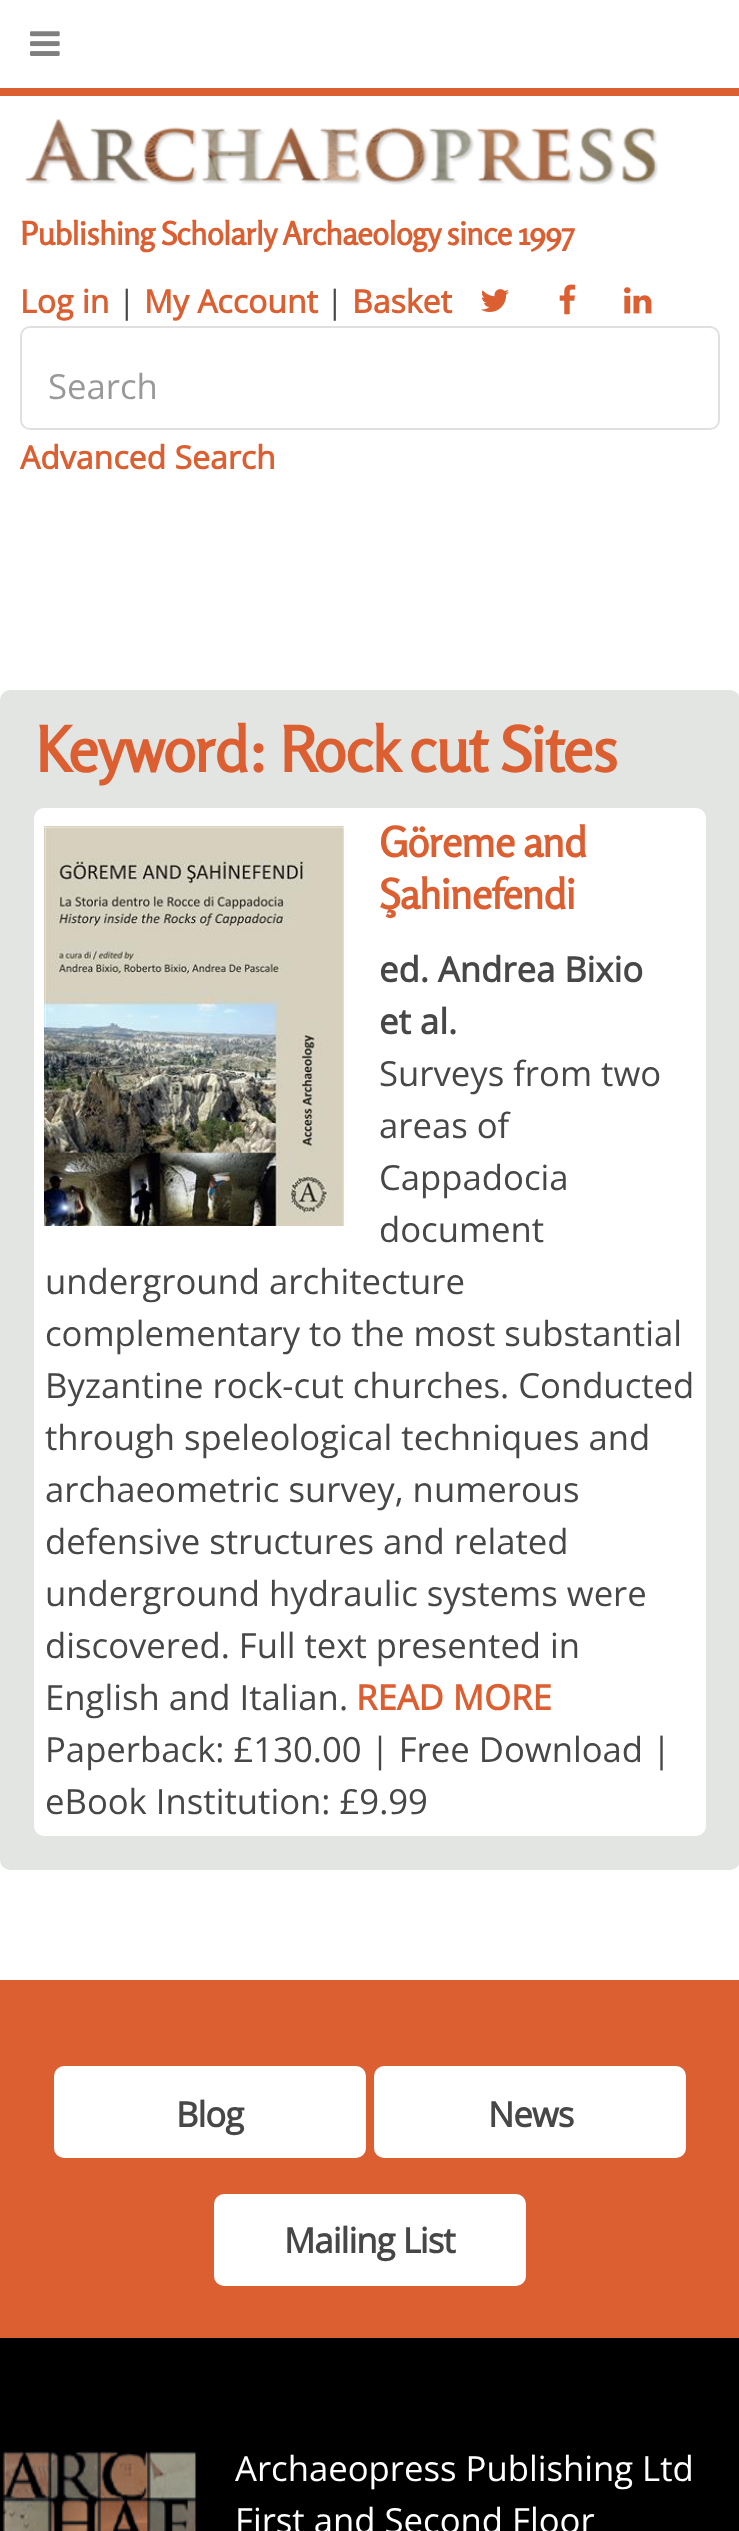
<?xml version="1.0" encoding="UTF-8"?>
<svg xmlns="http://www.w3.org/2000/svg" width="739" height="2531">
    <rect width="100%" height="100%" fill="#FFFFFF"/>
    <rect x="0" y="88" width="739" height="8" fill="#DC5F32"/>
    <image x="30" y="31" width="30" height="25" href="img_01.png"/>
    <image x="25" y="119" width="633" height="66" href="img_02.png"/>
    <text x="20" y="245" font-family="Rosario" font-size="32" font-weight="700" letter-spacing="-0.8" fill="#DC5F32">Publishing Scholarly Archaeology since 1997</text>
    <text x="20" y="313" font-family="Open Sans" font-size="32" font-weight="700" fill="#DC5F32">Log in</text>
    <text x="118" y="313" font-family="Open Sans" font-size="32" fill="#474747">|</text>
    <text x="144" y="313" font-family="Open Sans" font-size="32" font-weight="700" fill="#DC5F32">My Account</text>
    <text x="326" y="313" font-family="Open Sans" font-size="32" fill="#474747">|</text>
    <text x="352" y="313" font-family="Open Sans" font-size="32" font-weight="700" fill="#DC5F32">Basket</text>
    <image x="481" y="289" width="28" height="23" href="img_03.png"/>
    <image x="559" y="284" width="17" height="31" href="img_04.png"/>
    <image x="624" y="287" width="28" height="27" href="img_05.png"/>
    <rect x="21" y="327" width="698" height="102" rx="9" fill="none" stroke="#E0E0E0" stroke-width="2"/>
    <text x="48" y="399" font-family="Open Sans" font-size="34.7" fill="#999999">Search</text>
    <text x="20" y="469" font-family="Open Sans" font-size="32" font-weight="700" fill="#DC5F32">Advanced Search</text>
    <rect x="0" y="690" width="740" height="1180" rx="10" fill="#E3E5E3"/>
    <text x="35" y="772" font-family="Rosario" font-size="62.5" font-weight="700" letter-spacing="-1.6" fill="#DC5F32">Keyword: Rock cut Sites</text>
    <rect x="34" y="808" width="672" height="1028" rx="10" fill="#FFFFFF"/>
    <image x="44" y="826" width="300" height="400" href="img_06.png"/>
    <text font-family="Rosario" font-size="41.5" font-weight="700" letter-spacing="-1" fill="#DC5F32">
        <tspan x="379" y="857">Göreme and</tspan>
        <tspan x="379" y="909">Şahinefendi</tspan>
    </text>
    <text font-family="Open Sans" font-size="34.7" font-weight="700" fill="#474747">
        <tspan x="379" y="982">ed. Andrea Bixio</tspan>
        <tspan x="379" y="1034">et al.</tspan>
    </text>
    <text font-family="Open Sans" font-size="34.7" fill="#474747">
        <tspan x="379" y="1086">Surveys from two</tspan>
        <tspan x="379" y="1138">areas of</tspan>
        <tspan x="379" y="1190">Cappadocia</tspan>
        <tspan x="379" y="1242">document</tspan>
    </text>
    <text font-family="Open Sans" font-size="34.7" fill="#474747">
        <tspan x="45" y="1294">underground architecture</tspan>
        <tspan x="45" y="1346">complementary to the most substantial</tspan>
        <tspan x="45" y="1398">Byzantine rock-cut churches. Conducted</tspan>
        <tspan x="45" y="1450">through speleological techniques and</tspan>
        <tspan x="45" y="1502">archaeometric survey, numerous</tspan>
        <tspan x="45" y="1554">defensive structures and related</tspan>
        <tspan x="45" y="1606">underground hydraulic systems were</tspan>
        <tspan x="45" y="1658">discovered. Full text presented in</tspan>
        <tspan x="45" y="1710">English and Italian.</tspan>
    </text>
    <text x="356" y="1710" font-family="Open Sans" font-size="34.7" font-weight="700" fill="#DC5F32">READ MORE</text>
    <text font-family="Open Sans" font-size="34.7" fill="#474747">
        <tspan x="45" y="1762">Paperback: £130.00 | Free Download |</tspan>
        <tspan x="45" y="1814">eBook Institution: £9.99</tspan>
    </text>
    <rect x="0" y="1980" width="739" height="358" fill="#DC5F32"/>
    <rect x="54" y="2066" width="312" height="92" rx="10" fill="#FFFFFF"/>
    <text x="176" y="2127" font-family="Open Sans" font-size="34.7" font-weight="700" letter-spacing="-0.9" fill="#474747">Blog</text>
    <rect x="374" y="2066" width="312" height="92" rx="10" fill="#FFFFFF"/>
    <text x="488" y="2127" font-family="Open Sans" font-size="34.7" font-weight="700" letter-spacing="-0.9" fill="#474747">News</text>
    <rect x="214" y="2194" width="312" height="92" rx="10" fill="#FFFFFF"/>
    <text x="284" y="2253" font-family="Open Sans" font-size="34.7" font-weight="700" letter-spacing="-0.9" fill="#474747">Mailing List</text>
    <rect x="0" y="2338" width="739" height="193" fill="#000000"/>
    <image x="2" y="2451" width="195" height="80" href="img_07.png"/>
    <text font-family="Open Sans" font-size="34.7" fill="#FFFFFF">
        <tspan x="235" y="2481">Archaeopress Publishing Ltd</tspan>
        <tspan x="235" y="2533">First and Second Floor</tspan>
    </text>
</svg>
